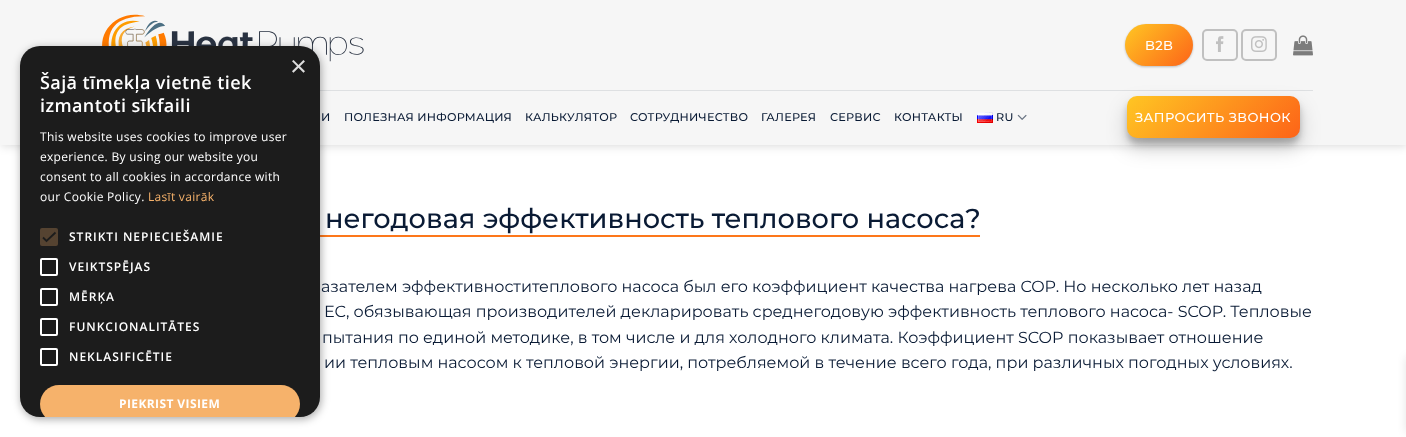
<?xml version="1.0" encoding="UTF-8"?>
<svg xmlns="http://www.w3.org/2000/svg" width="1406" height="437">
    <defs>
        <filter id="blur1" x="-50%" y="-200%" width="200%" height="500%"><feGaussianBlur stdDeviation="5"/></filter>
        <filter id="blur2" x="-50%" y="-200%" width="200%" height="500%"><feGaussianBlur stdDeviation="10"/></filter>
        <filter id="blur3" x="-50%" y="-200%" width="200%" height="500%"><feGaussianBlur stdDeviation="4"/></filter>
        <clipPath id="clip1"><rect x="20" y="46" width="300" height="371" rx="20"/></clipPath>
        <filter id="blur4" x="-50%" y="-200%" width="200%" height="500%"><feGaussianBlur stdDeviation="1"/></filter>
        <linearGradient id="g1" gradientUnits="userSpaceOnUse" x1="1132" y1="18" x2="1187" y2="73"><stop offset="0" stop-color="#FFC623"/><stop offset="1" stop-color="#FD6318"/></linearGradient>
        <filter id="blur5" x="-50%" y="-200%" width="200%" height="500%"><feGaussianBlur stdDeviation="3"/></filter>
        <linearGradient id="g2" gradientUnits="userSpaceOnUse" x1="1160" y1="63" x2="1267" y2="171"><stop offset="0" stop-color="#FFC623"/><stop offset="1" stop-color="#FD6318"/></linearGradient>
    </defs>
    <rect width="100%" height="100%" fill="#FFFFFF"/>
    <rect x="1" y="1" width="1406" height="145" fill="#000000" fill-opacity="0.15" filter="url(#blur1)"/>
    <rect x="0" y="0" width="1406" height="145" fill="#F6F6F6"/>
    <image x="102" y="14" width="262" height="48" href="img_01.png"/>
    <rect x="1127" y="106" width="173" height="42" rx="10" fill="#000000" fill-opacity="0.19" filter="url(#blur2)"/>
    <rect x="320" y="90" width="993" height="1" fill="#091A34" fill-opacity="0.1"/>
    <rect x="320" y="235" width="660" height="2" fill="#FD771A"/>
    <rect x="21" y="48" width="300" height="371" rx="20" fill="#000000" fill-opacity="0.35" filter="url(#blur3)"/>
    <rect x="20" y="46" width="300" height="371" rx="20" fill="#1C1C1C"/>
    <text x="290" y="76" font-family="Liberation Sans" font-size="29" fill="#DDDDDD">×</text>
    <text font-family="Open Sans" font-size="18" font-weight="600" letter-spacing="0.4" fill="#FFFFFF">
        <tspan x="40" y="89">Šajā tīmekļa vietnē tiek</tspan>
        <tspan x="40" y="112">izmantoti sīkfaili</tspan>
    </text>
    <text font-family="Open Sans" font-size="12" letter-spacing="0.3" fill="#FFFFFF">
        <tspan x="40" y="141">This website uses cookies to improve user</tspan>
        <tspan x="40" y="161">experience. By using our website you</tspan>
        <tspan x="40" y="181">consent to all cookies in accordance with</tspan>
        <tspan x="40" y="201">our Cookie Policy.</tspan>
    </text>
    <text x="148" y="201" font-family="Open Sans" font-size="12" letter-spacing="0.3" fill="#F6B26B">Lasīt vairāk</text>
    <rect x="40" y="228" width="18" height="18" rx="2" fill="#554331"/>
    <path d="M 43 237.5 L 46.5 241 L 55.5 232.5" fill="none" stroke="#1C1C1C" stroke-width="1.8"/>
    <text x="69" y="241" font-family="Open Sans" font-size="12" font-weight="600" letter-spacing="1" fill="#FFFFFF">STRIKTI NEPIECIEŠAMIE</text>
    <rect x="41" y="259" width="16" height="16" rx="1" fill="none" stroke="#FFFFFF" stroke-width="2"/>
    <text x="69" y="271" font-family="Open Sans" font-size="12" font-weight="600" letter-spacing="1" fill="#FFFFFF">VEIKTSPĒJAS</text>
    <rect x="41" y="289" width="16" height="16" rx="1" fill="none" stroke="#FFFFFF" stroke-width="2"/>
    <text x="69" y="301" font-family="Open Sans" font-size="12" font-weight="600" letter-spacing="1" fill="#FFFFFF">MĒRĶA</text>
    <rect x="41" y="319" width="16" height="16" rx="1" fill="none" stroke="#FFFFFF" stroke-width="2"/>
    <text x="69" y="331" font-family="Open Sans" font-size="12" font-weight="600" letter-spacing="1" fill="#FFFFFF">FUNKCIONALITĀTES</text>
    <rect x="41" y="349" width="16" height="16" rx="1" fill="none" stroke="#FFFFFF" stroke-width="2"/>
    <text x="69" y="361" font-family="Open Sans" font-size="12" font-weight="600" letter-spacing="1" fill="#FFFFFF">NEKLASIFICĒTIE</text>
    <g clip-path="url(#clip1)">
        <rect x="40" y="385" width="260" height="38" rx="19" fill="#F6B26B"/>
    </g>
    <text x="119" y="408" font-family="Open Sans" font-size="12" font-weight="700" letter-spacing="0.4" fill="#FFFFFF">PIEKRIST VISIEM</text>
    <rect x="1125" y="25" width="68" height="42" rx="21" fill="#000000" fill-opacity="0.24" filter="url(#blur4)"/>
    <rect x="1125" y="24" width="68" height="42" rx="21" fill="url(#g1)"/>
    <text x="1145" y="50" font-family="Montserrat" font-size="13" font-weight="500" letter-spacing="0.4" fill="#FFFFFF">B2B</text>
    <rect x="1203" y="30" width="34" height="30" rx="4" fill="none" stroke="#C0C0C0" stroke-width="2"/>
    <image x="1216" y="36" width="8" height="16" href="img_02.png"/>
    <rect x="1242" y="30" width="34" height="30" rx="4" fill="none" stroke="#C0C0C0" stroke-width="2"/>
    <image x="1251" y="36" width="16" height="16" href="img_03.png"/>
    <image x="1293" y="35" width="20" height="21" href="img_04.png"/>
    <text x="321" y="121" font-family="Montserrat" font-size="11.25" font-weight="500" letter-spacing="0.25" fill="#091A34">И</text>
    <text x="344" y="121" font-family="Montserrat" font-size="11.25" font-weight="500" letter-spacing="0.25" fill="#091A34">ПОЛЕЗНАЯ ИНФОРМАЦИЯ</text>
    <text x="525" y="121" font-family="Montserrat" font-size="11.25" font-weight="500" letter-spacing="0.25" fill="#091A34">КАЛЬКУЛЯТОР</text>
    <text x="630" y="121" font-family="Montserrat" font-size="11.25" font-weight="500" letter-spacing="0.25" fill="#091A34">СОТРУДНИЧЕСТВО</text>
    <text x="761" y="121" font-family="Montserrat" font-size="11.25" font-weight="500" letter-spacing="0.25" fill="#091A34">ГАЛЕРЕЯ</text>
    <text x="830" y="121" font-family="Montserrat" font-size="11.25" font-weight="500" letter-spacing="0.25" fill="#091A34">СЕРВИС</text>
    <text x="894" y="121" font-family="Montserrat" font-size="11.25" font-weight="500" letter-spacing="0.25" fill="#091A34">КОНТАКТЫ</text>
    <image x="977" y="112" width="16" height="11" href="img_05.png"/>
    <text x="996" y="121" font-family="Montserrat" font-size="11.25" font-weight="500" letter-spacing="0.25" fill="#091A34">RU</text>
    <image x="1017" y="114" width="10" height="6" href="img_06.png"/>
    <rect x="1127" y="102" width="173" height="42" rx="10" fill="#000000" fill-opacity="0.22" filter="url(#blur5)"/>
    <rect x="1127" y="96" width="173" height="42" rx="10" fill="url(#g2)"/>
    <text x="1135" y="122" font-family="Montserrat" font-size="13" font-weight="500" letter-spacing="0.4" fill="#FFFFFF">ЗАПРОСИТЬ ЗВОНОК</text>
    <text x="325" y="228" font-family="Montserrat" font-size="27.2" font-weight="500" fill="#091A34">негодовая эффективность теплового насоса?</text>
    <text x="321" y="292" font-family="Montserrat" font-size="16" fill="#091A34">азателем эффективноститеплового насоса был его коэффициент качества нагрева COP. Но несколько лет назад</text>
    <text x="324" y="317" font-family="Montserrat" font-size="16" fill="#091A34">ЕС, обязывающая производителей декларировать среднегодовую эффективность теплового насоса- SCOP. Тепловые</text>
    <text x="322" y="343" font-family="Montserrat" font-size="16" fill="#091A34">пытания по единой методике, в том числе и для холодного климата. Коэффициент SCOP показывает отношение</text>
    <text x="324" y="368" font-family="Montserrat" font-size="16" fill="#091A34">ии тепловым насосом к тепловой энергии, потребляемой в течение всего года, при различных погодных условиях.</text>
    <rect x="1406" y="357" width="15" height="75" fill="#000000" fill-opacity="0.1" filter="url(#blur1)"/>
</svg>
